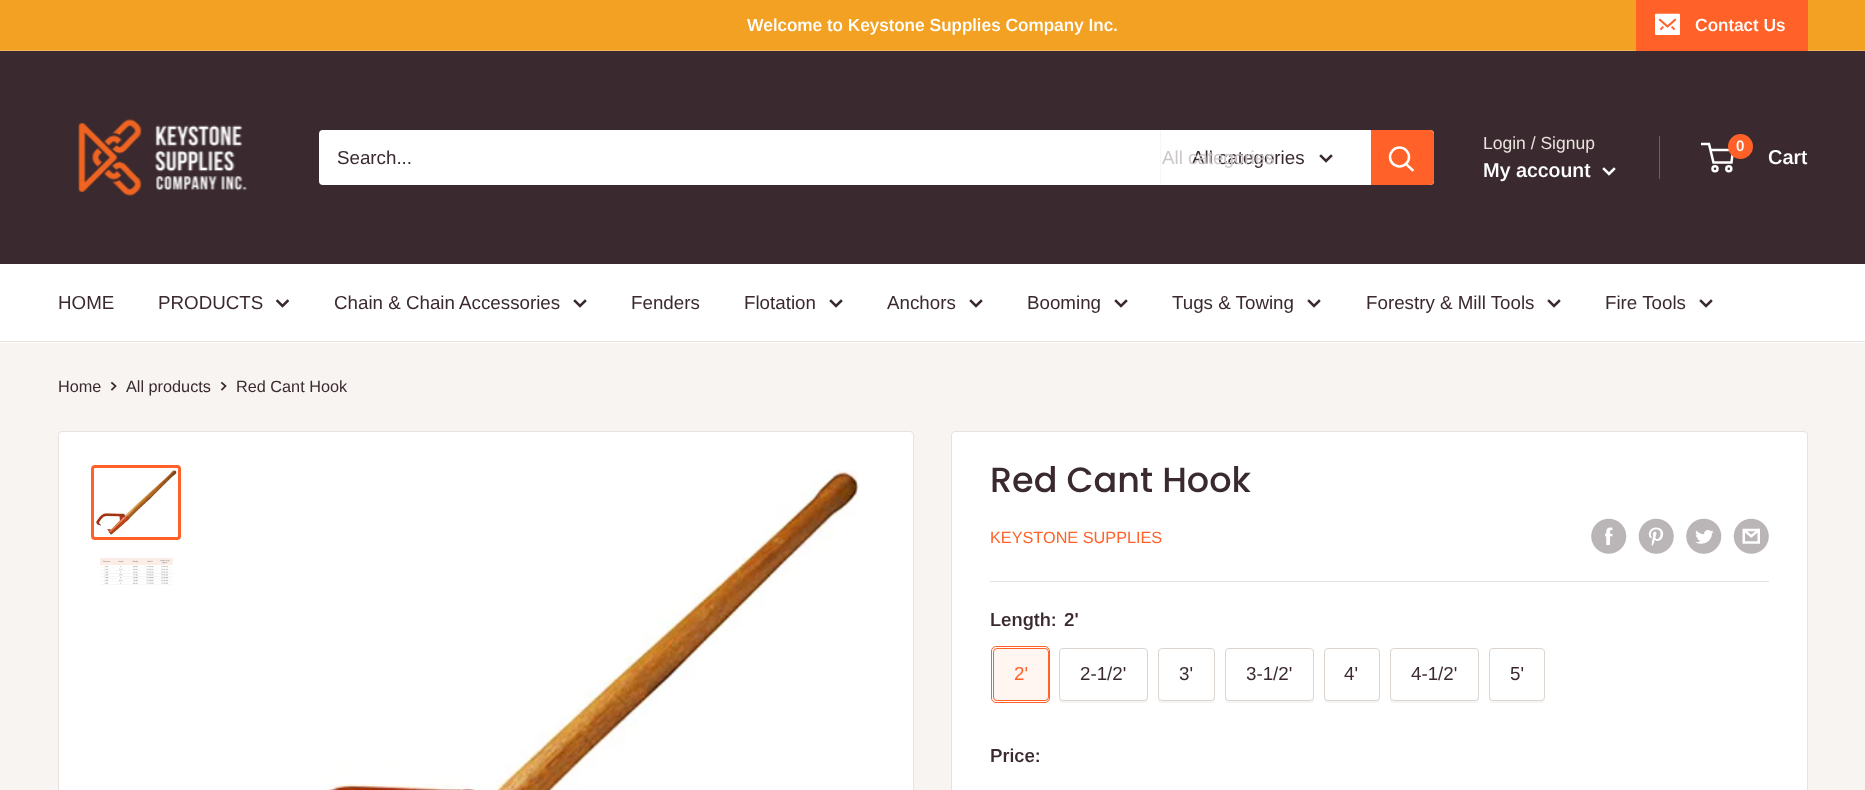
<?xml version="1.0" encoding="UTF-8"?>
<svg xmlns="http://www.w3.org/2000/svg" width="1865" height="790">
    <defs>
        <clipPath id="clip1"><path d="M 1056 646 H 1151 V 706 H 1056 Z M 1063 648 H 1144 C 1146 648 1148 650 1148 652 V 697 C 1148 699 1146 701 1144 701 H 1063 C 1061 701 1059 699 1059 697 V 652 C 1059 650 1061 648 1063 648 Z" clip-rule="evenodd"/></clipPath>
        <filter id="blur1" x="-50%" y="-200%" width="200%" height="500%"><feGaussianBlur stdDeviation="0.5"/></filter>
        <clipPath id="clip2"><path d="M 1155 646 H 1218 V 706 H 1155 Z M 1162 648 H 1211 C 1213 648 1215 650 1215 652 V 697 C 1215 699 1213 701 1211 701 H 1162 C 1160 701 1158 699 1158 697 V 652 C 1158 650 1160 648 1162 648 Z" clip-rule="evenodd"/></clipPath>
        <clipPath id="clip3"><path d="M 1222 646 H 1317 V 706 H 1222 Z M 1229 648 H 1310 C 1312 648 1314 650 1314 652 V 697 C 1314 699 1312 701 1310 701 H 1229 C 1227 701 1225 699 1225 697 V 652 C 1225 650 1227 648 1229 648 Z" clip-rule="evenodd"/></clipPath>
        <clipPath id="clip4"><path d="M 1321 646 H 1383 V 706 H 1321 Z M 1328 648 H 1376 C 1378 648 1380 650 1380 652 V 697 C 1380 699 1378 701 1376 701 H 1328 C 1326 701 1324 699 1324 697 V 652 C 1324 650 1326 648 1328 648 Z" clip-rule="evenodd"/></clipPath>
        <clipPath id="clip5"><path d="M 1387 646 H 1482 V 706 H 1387 Z M 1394 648 H 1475 C 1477 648 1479 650 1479 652 V 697 C 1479 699 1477 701 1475 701 H 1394 C 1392 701 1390 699 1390 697 V 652 C 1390 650 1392 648 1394 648 Z" clip-rule="evenodd"/></clipPath>
        <clipPath id="clip6"><path d="M 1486 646 H 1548 V 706 H 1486 Z M 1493 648 H 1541 C 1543 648 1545 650 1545 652 V 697 C 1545 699 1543 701 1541 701 H 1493 C 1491 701 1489 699 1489 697 V 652 C 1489 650 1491 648 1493 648 Z" clip-rule="evenodd"/></clipPath>
    </defs>
    <rect width="100%" height="100%" fill="#F7F4F2"/>
    <rect x="0" y="0" width="1865" height="50" fill="#F3A123"/>
    <rect x="0" y="50" width="1865" height="1" fill="#F0B55B"/>
    <text x="747" y="31" font-family="Arimo" font-size="17.5" font-weight="600" fill="#FFFFFF">Welcome to Keystone Supplies Company Inc.</text>
    <path d="M 1636 1 V 51 H 1808 V 1 V 50 H 1636 Z" fill="#FF6128"/>
    <rect x="1636" y="0" width="172" height="50" fill="#FF6128"/>
    <image x="1655" y="13" width="25" height="22" href="img_01.png"/>
    <text x="1695" y="31" font-family="Arimo" font-size="17.5" font-weight="600" fill="#FFFFFF">Contact Us</text>
    <rect x="0" y="51" width="1865" height="213" fill="#3A2A2F"/>
    <image x="78" y="119" width="169" height="77" href="img_02.png"/>
    <rect x="319" y="130" width="1115" height="55" rx="4" fill="#FFFFFF"/>
    <text x="337" y="164" font-family="Arimo" font-size="18.75" fill="#3A2A2F">Search...</text>
    <rect x="1160" y="130" width="1" height="55" fill="#F8F6F5"/>
    <text x="1192" y="164" font-family="Arimo" font-size="18.75" fill="#3A2A2F">All categories</text>
    <text x="1162" y="164" font-family="Arimo" font-size="18.75" fill="#CBC7C8">All categories</text>
    <path d="M 1331 156 L 1326 161 L 1321 156" fill="none" stroke="#3A2A2F" stroke-width="2.5" stroke-linecap="square"/>
    <path d="M 1371 130 H 1430 C 1432 130 1434 132 1434 134 V 181 C 1434 183 1432 185 1430 185 H 1371 Z" fill="#FF6128"/>
    <path d="M 1412.5 170 L 1406 164" fill="none" stroke="#FFFFFF" stroke-width="2.5" stroke-linecap="square"/>
    <circle cx="1399.5" cy="157" r="9.5" fill="none" stroke="#FFFFFF" stroke-width="2.5"/>
    <text x="1483" y="149" font-family="Arimo" font-size="17.5" fill="#E9E2DD">Login / Signup</text>
    <rect x="1659" y="136" width="1" height="43" fill="#6F6163"/>
    <text x="1483" y="177" font-family="Arimo" font-size="20" font-weight="600" fill="#FFFFFF">My account</text>
    <path d="M 1614 169 L 1609 174 L 1604 169" fill="none" stroke="#FFFFFF" stroke-width="2.5" stroke-linecap="square"/>
    <circle cx="1715" cy="168.8" r="2.5" fill="none" stroke="#FFFFFF" stroke-width="2.5"/>
    <circle cx="1728.8" cy="168.8" r="2.5" fill="none" stroke="#FFFFFF" stroke-width="2.5"/>
    <path d="M 1710.5 150 H 1733 L 1731.5 162.5 H 1713.5 L 1709 144 H 1701" fill="none" stroke="#FFFFFF" stroke-width="2.5"/>
    <circle cx="1740.5" cy="146.5" r="12.5" fill="#FF6128"/>
    <text x="1736" y="151" font-family="Arimo" font-size="15" font-weight="600" fill="#FFFFFF">0</text>
    <text x="1768" y="164" font-family="Arimo" font-size="20" font-weight="600" fill="#FFFFFF">Cart</text>
    <rect x="0" y="264" width="1865" height="79" fill="#FFFFFF"/>
    <rect x="0" y="341" width="1865" height="1" fill="#E7E2DE"/>
    <text x="58" y="309" font-family="Arimo" font-size="18.75" fill="#3A2A2F">HOME</text>
    <text x="158" y="309" font-family="Arimo" font-size="18.75" fill="#3A2A2F">PRODUCTS</text>
    <path d="M 287.5 301 L 282.5 306 L 277.5 301" fill="none" stroke="#3A2A2F" stroke-width="2.5" stroke-linecap="square"/>
    <text x="334" y="309" font-family="Arimo" font-size="18.75" fill="#3A2A2F">Chain &amp; Chain Accessories</text>
    <path d="M 585 301 L 580 306 L 575 301" fill="none" stroke="#3A2A2F" stroke-width="2.5" stroke-linecap="square"/>
    <text x="631" y="309" font-family="Arimo" font-size="18.75" fill="#3A2A2F">Fenders</text>
    <text x="744" y="309" font-family="Arimo" font-size="18.75" fill="#3A2A2F">Flotation</text>
    <path d="M 841 301 L 836 306 L 831 301" fill="none" stroke="#3A2A2F" stroke-width="2.5" stroke-linecap="square"/>
    <text x="887" y="309" font-family="Arimo" font-size="18.75" fill="#3A2A2F">Anchors</text>
    <path d="M 981 301 L 976 306 L 971 301" fill="none" stroke="#3A2A2F" stroke-width="2.5" stroke-linecap="square"/>
    <text x="1027" y="309" font-family="Arimo" font-size="18.75" fill="#3A2A2F">Booming</text>
    <path d="M 1126 301 L 1121 306 L 1116 301" fill="none" stroke="#3A2A2F" stroke-width="2.5" stroke-linecap="square"/>
    <text x="1172" y="309" font-family="Arimo" font-size="18.75" fill="#3A2A2F">Tugs &amp; Towing</text>
    <path d="M 1319 301 L 1314 306 L 1309 301" fill="none" stroke="#3A2A2F" stroke-width="2.5" stroke-linecap="square"/>
    <text x="1366" y="309" font-family="Arimo" font-size="18.75" fill="#3A2A2F">Forestry &amp; Mill Tools</text>
    <path d="M 1559 301 L 1554 306 L 1549 301" fill="none" stroke="#3A2A2F" stroke-width="2.5" stroke-linecap="square"/>
    <text x="1605" y="309" font-family="Arimo" font-size="18.75" fill="#3A2A2F">Fire Tools</text>
    <path d="M 1711 301 L 1706 306 L 1701 301" fill="none" stroke="#3A2A2F" stroke-width="2.5" stroke-linecap="square"/>
    <text x="58" y="392" font-family="Arimo" font-size="16.25" fill="#3A2A2F">Home</text>
    <path d="M 112 383 L 115.5 386 L 112 389.5" fill="none" stroke="#3A2A2F" stroke-width="1.7" stroke-linecap="square"/>
    <text x="126" y="392" font-family="Arimo" font-size="16.25" fill="#3A2A2F">All products</text>
    <path d="M 222 383 L 225.5 386 L 222 389.5" fill="none" stroke="#3A2A2F" stroke-width="1.7" stroke-linecap="square"/>
    <text x="236" y="392" font-family="Arimo" font-size="16.25" fill="#3A2A2F">Red Cant Hook</text>
    <rect x="58.5" y="431.5" width="855" height="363" rx="3.5" fill="#FFFFFF" stroke="#E7E2DE"/>
    <rect x="92.5" y="466.5" width="87" height="72" rx="2.5" fill="none" stroke="#FF6128" stroke-width="3"/>
    <image x="96" y="470" width="81" height="65" href="img_03.png"/>
    <image x="100" y="557" width="73" height="28" href="img_04.png"/>
    <image x="322" y="470" width="537" height="320" href="img_05.png"/>
    <rect x="951.5" y="431.5" width="856" height="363" rx="3.5" fill="#FFFFFF" stroke="#E7E2DE"/>
    <text x="990" y="492" font-family="Poppins" font-size="35" font-weight="500" fill="#3A2A2F">Red Cant Hook</text>
    <text x="990" y="543" font-family="Arimo" font-size="16.25" fill="#FF6128">KEYSTONE SUPPLIES</text>
    <image x="1591" y="518" width="36" height="36" href="img_06.png"/>
    <image x="1638" y="518" width="36" height="36" href="img_07.png"/>
    <image x="1686" y="518" width="36" height="36" href="img_08.png"/>
    <image x="1733" y="518" width="36" height="36" href="img_09.png"/>
    <rect x="990" y="581" width="779" height="1" fill="#E7E2DE"/>
    <text x="990" y="626" font-family="Arimo" font-size="18.75" font-weight="600" fill="#3A2A2F">Length:</text>
    <text x="1064" y="626" font-family="Arimo" font-size="18.75" font-weight="600" fill="#3A2A2F">2'</text>
    <rect x="991.5" y="646.5" width="58" height="56" rx="4.5" fill="none" stroke="#FF6128"/>
    <rect x="993" y="648" width="56" height="53" fill="#FF6128" fill-opacity="0.06"/>
    <rect x="993.5" y="648.5" width="55" height="52" rx="3.5" fill="none" stroke="#FF6128"/>
    <text x="1014" y="680" font-family="Arimo" font-size="18.75" fill="#FF6128">2'</text>
    <g clip-path="url(#clip1)">
        <rect x="1059" y="649" width="89" height="54" rx="4" fill="#DCD5CF" fill-opacity="0.25" filter="url(#blur1)"/>
    </g>
    <rect x="1059.5" y="648.5" width="88" height="52" rx="3.5" fill="none" stroke="#DCD5CF"/>
    <text x="1080" y="680" font-family="Arimo" font-size="18.75" fill="#3A2A2F">2-1/2'</text>
    <g clip-path="url(#clip2)">
        <rect x="1158" y="649" width="57" height="54" rx="4" fill="#DCD5CF" fill-opacity="0.25" filter="url(#blur1)"/>
    </g>
    <rect x="1158.5" y="648.5" width="56" height="52" rx="3.5" fill="none" stroke="#DCD5CF"/>
    <text x="1179" y="680" font-family="Arimo" font-size="18.75" fill="#3A2A2F">3'</text>
    <g clip-path="url(#clip3)">
        <rect x="1225" y="649" width="89" height="54" rx="4" fill="#DCD5CF" fill-opacity="0.25" filter="url(#blur1)"/>
    </g>
    <rect x="1225.5" y="648.5" width="88" height="52" rx="3.5" fill="none" stroke="#DCD5CF"/>
    <text x="1246" y="680" font-family="Arimo" font-size="18.75" fill="#3A2A2F">3-1/2'</text>
    <g clip-path="url(#clip4)">
        <rect x="1324" y="649" width="56" height="54" rx="4" fill="#DCD5CF" fill-opacity="0.25" filter="url(#blur1)"/>
    </g>
    <rect x="1324.5" y="648.5" width="55" height="52" rx="3.5" fill="none" stroke="#DCD5CF"/>
    <text x="1344" y="680" font-family="Arimo" font-size="18.75" fill="#3A2A2F">4'</text>
    <g clip-path="url(#clip5)">
        <rect x="1390" y="649" width="89" height="54" rx="4" fill="#DCD5CF" fill-opacity="0.25" filter="url(#blur1)"/>
    </g>
    <rect x="1390.5" y="648.5" width="88" height="52" rx="3.5" fill="none" stroke="#DCD5CF"/>
    <text x="1411" y="680" font-family="Arimo" font-size="18.75" fill="#3A2A2F">4-1/2'</text>
    <g clip-path="url(#clip6)">
        <rect x="1489" y="649" width="56" height="54" rx="4" fill="#DCD5CF" fill-opacity="0.25" filter="url(#blur1)"/>
    </g>
    <rect x="1489.5" y="648.5" width="55" height="52" rx="3.5" fill="none" stroke="#DCD5CF"/>
    <text x="1510" y="680" font-family="Arimo" font-size="18.75" fill="#3A2A2F">5'</text>
    <text x="990" y="762" font-family="Arimo" font-size="18.75" font-weight="600" fill="#3A2A2F">Price:</text>
</svg>
